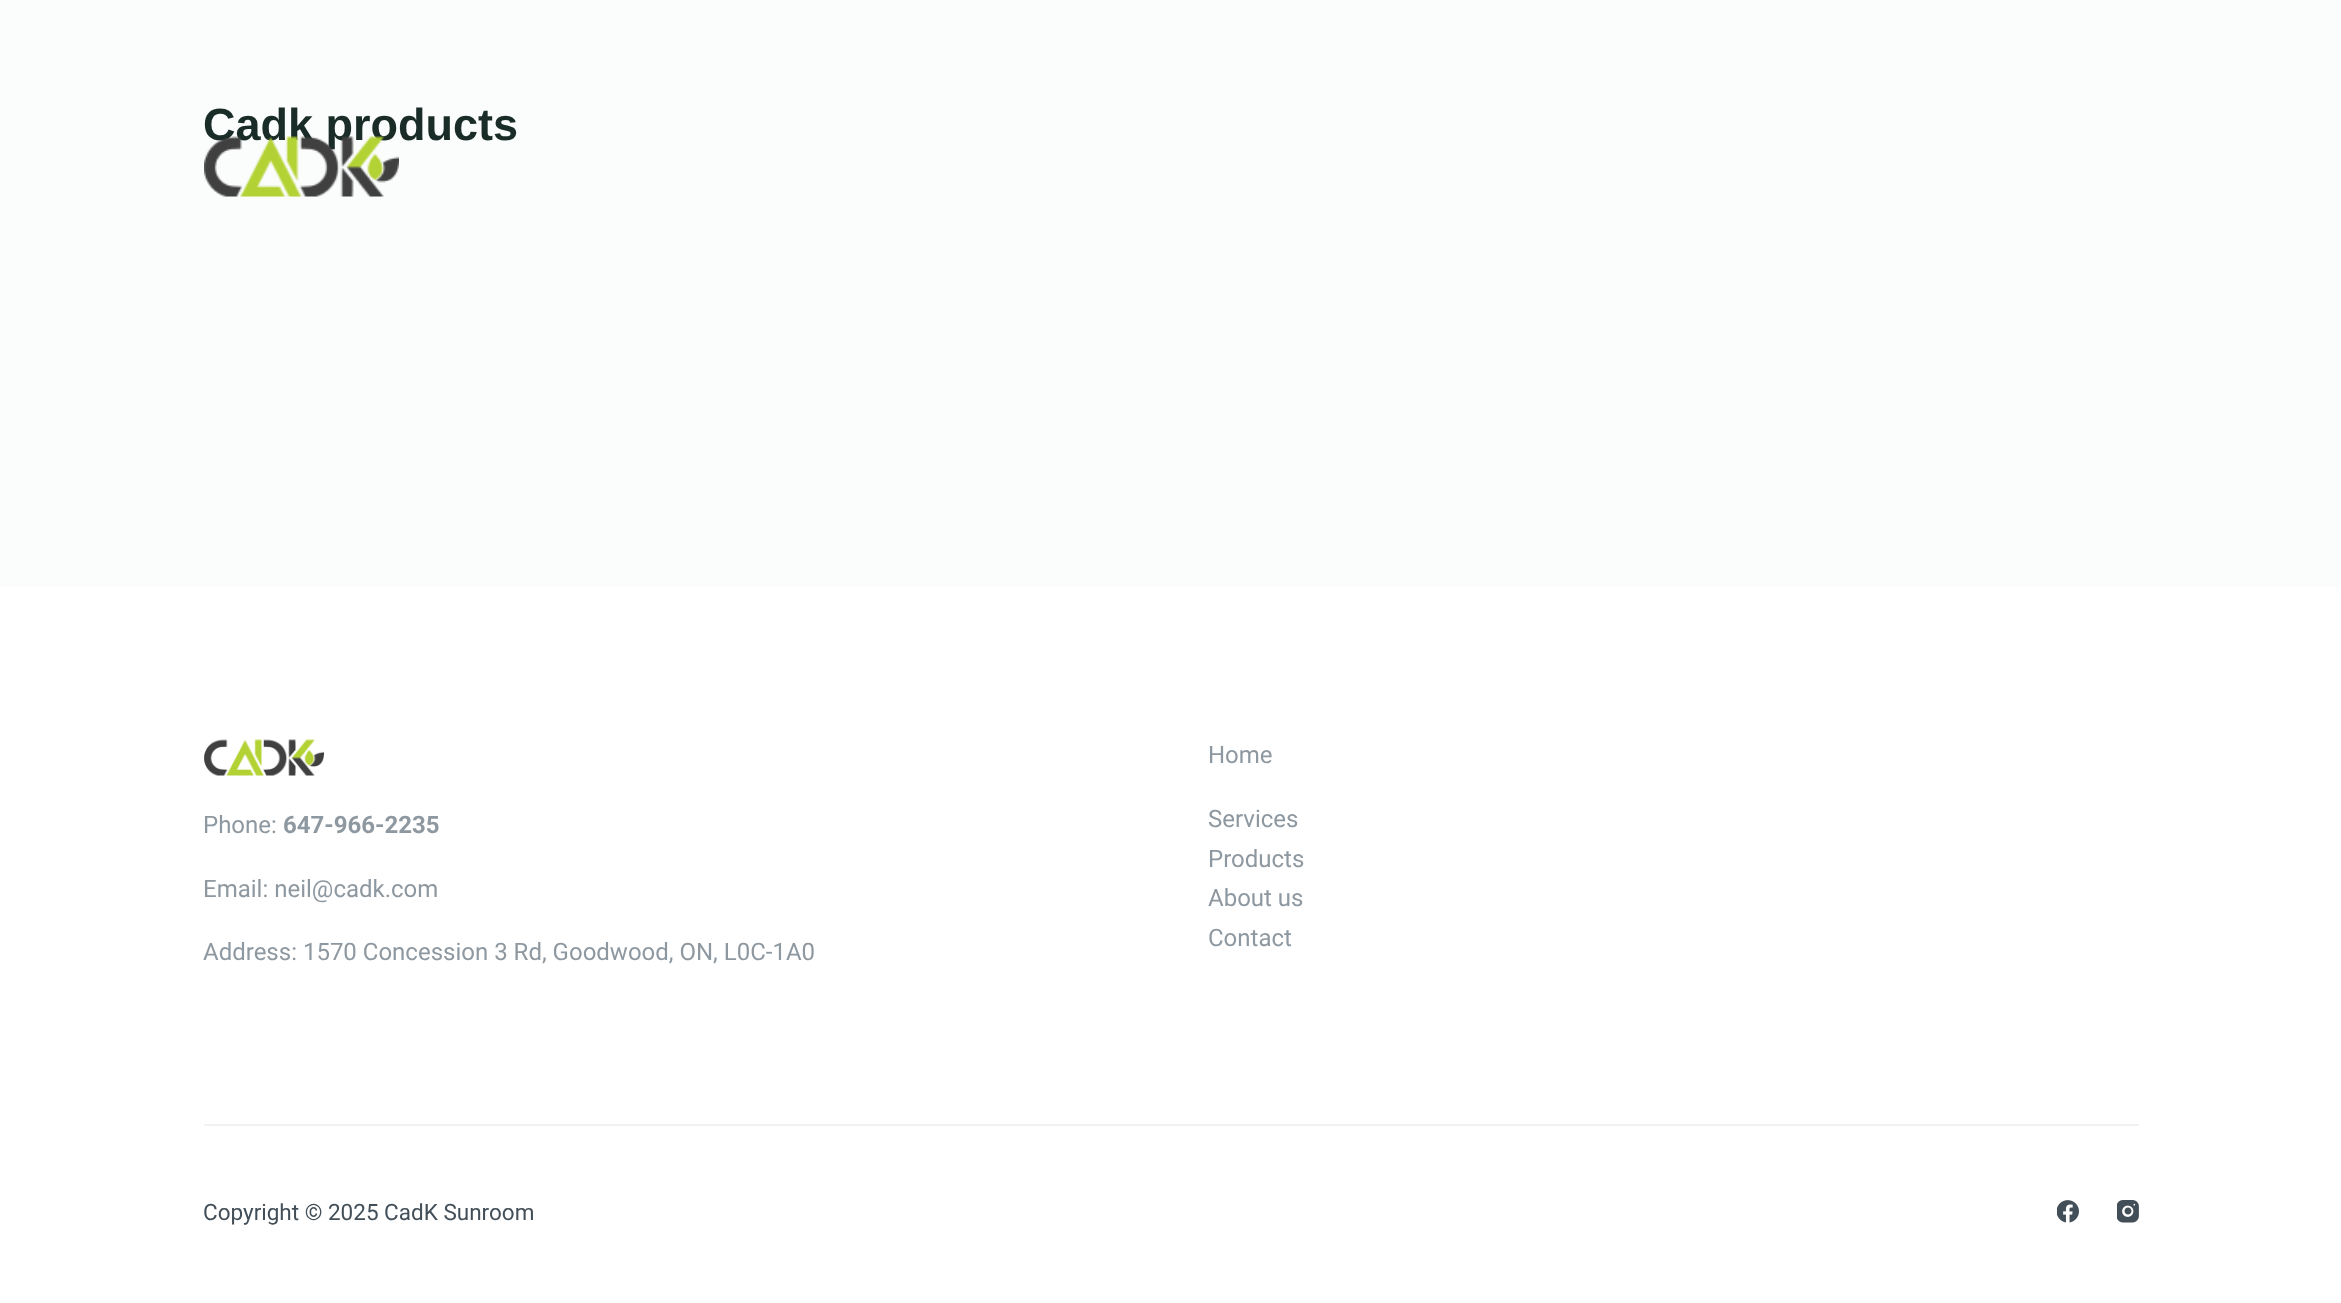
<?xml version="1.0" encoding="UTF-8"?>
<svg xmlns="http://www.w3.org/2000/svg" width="2341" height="1303">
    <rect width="100%" height="100%" fill="#FBFCFC"/>
    <text x="203" y="140" font-family="Liberation Sans" font-size="45" font-weight="700" fill="#192C27">Cadk products</text>
    <image x="204" y="136" width="195" height="61" href="img_01.png"/>
    <rect x="0" y="587" width="2341" height="716" fill="#FFFFFF"/>
    <image x="204" y="739" width="120" height="37" href="img_02.png"/>
    <text x="203" y="833" font-family="Roboto" font-size="24" fill="#8E98A0">Phone:</text>
    <text x="283" y="833" font-family="Roboto" font-size="24" font-weight="700" fill="#8E98A0">647-966-2235</text>
    <text x="203" y="897" font-family="Roboto" font-size="24" fill="#8E98A0">Email: neil@cadk.com</text>
    <text x="203" y="960" font-family="Roboto" font-size="24" fill="#8E98A0">Address: 1570 Concession 3 Rd, Goodwood, ON, L0C-1A0</text>
    <text x="1208" y="763" font-family="Roboto" font-size="24" fill="#8E98A0">Home</text>
    <text font-family="Roboto" font-size="24" fill="#8E98A0">
        <tspan x="1208" y="827">Services</tspan>
        <tspan x="1208" y="867">Products</tspan>
        <tspan x="1208" y="906">About us</tspan>
        <tspan x="1208" y="946">Contact</tspan>
    </text>
    <rect x="204" y="1124" width="1935" height="2" fill="#F2F2F2"/>
    <text x="203" y="1220" font-family="Roboto" font-size="22.5" fill="#434F58">Copyright © 2025 CadK Sunroom</text>
    <image x="2057" y="1200" width="22" height="23" href="img_03.png"/>
    <image x="2117" y="1200" width="22" height="23" href="img_04.png"/>
</svg>
